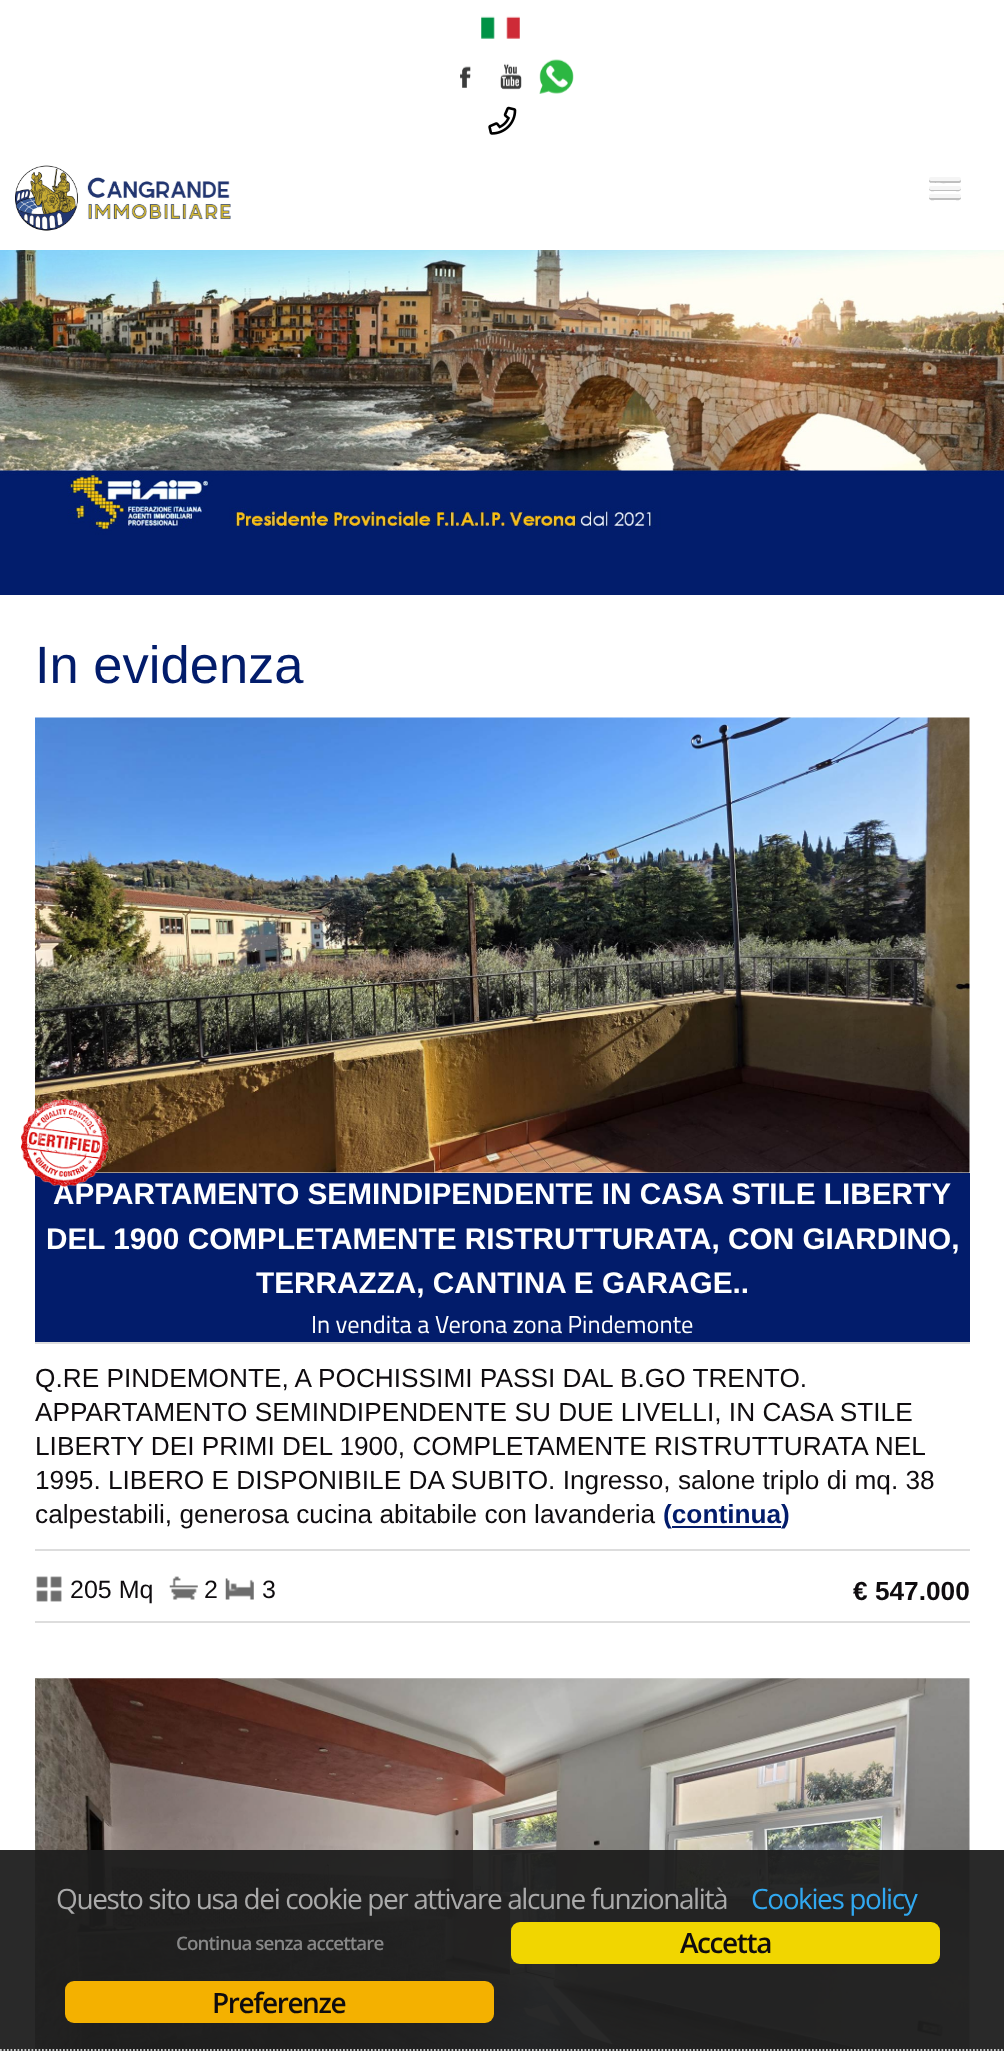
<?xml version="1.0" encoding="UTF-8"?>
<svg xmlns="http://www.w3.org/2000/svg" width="1004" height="2051">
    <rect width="100%" height="100%" fill="#FFFFFF"/>
    <image x="481" y="16" width="39" height="23" href="img_01.png"/>
    <image x="460" y="66" width="11" height="22" href="img_02.png"/>
    <image x="500" y="63" width="22" height="27" href="img_03.png"/>
    <image x="539" y="59" width="35" height="35" href="img_04.png"/>
    <image x="488" y="106" width="29" height="29" href="img_05.png"/>
    <image x="15" y="165" width="216" height="66" href="img_06.png"/>
    <path d="M 929.5 179.5 C 928.5 180.5 929 182 930 182.5 C 931 183.5 955.5 183 959 183 C 961 183 961.5 181 960.5 179.5 L 959 180 H 931 Z" fill="#BFBFBF"/>
    <rect x="929" y="177" width="32" height="4" rx="2" fill="#F5F5F5"/>
    <path d="M 929.5 188 L 929 189.5 C 929.5 192 934.5 191 935.5 191 H 954.5 C 955.5 191 960.5 192 961 189.5 L 960.5 188 C 960.5 188.5 960 189 959 189 H 931 C 930 189 929.5 188.5 929.5 188 Z" fill="#BFBFBF"/>
    <rect x="929" y="186" width="32" height="4" rx="2" fill="#F5F5F5"/>
    <path d="M 929.5 197 L 929 198.5 C 929.5 201 934.5 200 935.5 200 H 954.5 C 955.5 200 960.5 201 961 198.5 L 960.5 197 C 960.5 197.5 959.5 198 959 198 H 931 C 930.5 198 929.5 197.5 929.5 197 Z" fill="#BFBFBF"/>
    <rect x="929" y="194" width="32" height="4" rx="2" fill="#F5F5F5"/>
    <image x="0" y="250" width="1004" height="345" href="img_07.png"/>
    <text x="35" y="683" font-family="Liberation Sans" font-size="52.5" fill="#021C6B">In evidenza</text>
    <image x="35" y="717" width="935" height="456" href="img_08.png"/>
    <rect x="35" y="1173" width="935" height="169" fill="#021C6B"/>
    <text x="53" y="1204" font-family="Liberation Sans" font-size="29.75" font-weight="700" fill="#FFFFFF">APPARTAMENTO SEMINDIPENDENTE IN CASA STILE LIBERTY</text>
    <image x="21" y="1099" width="88" height="88" href="img_09.png"/>
    <text x="46" y="1249" font-family="Liberation Sans" font-size="29.75" font-weight="700" fill="#FFFFFF">DEL 1900 COMPLETAMENTE RISTRUTTURATA, CON GIARDINO,</text>
    <text x="256" y="1293" font-family="Liberation Sans" font-size="29.75" font-weight="700" fill="#FFFFFF">TERRAZZA, CANTINA E GARAGE..</text>
    <text x="311" y="1333" font-family="Titillium Web" font-size="24.5" fill="#FFFFFF">In vendita a Verona zona Pindemonte</text>
    <rect x="35" y="1342" width="935" height="2" fill="#DDDDDD"/>
    <text font-family="Liberation Sans" font-size="26.25" fill="#0F0C0F">
        <tspan x="35" y="1387">Q.RE PINDEMONTE, A POCHISSIMI PASSI DAL B.GO TRENTO.</tspan>
        <tspan x="35" y="1421">APPARTAMENTO SEMINDIPENDENTE SU DUE LIVELLI, IN CASA STILE</tspan>
        <tspan x="35" y="1455">LIBERTY DEI PRIMI DEL 1900, COMPLETAMENTE RISTRUTTURATA NEL</tspan>
        <tspan x="35" y="1489">1995. LIBERO E DISPONIBILE DA SUBITO. Ingresso, salone triplo di mq. 38</tspan>
        <tspan x="35" y="1523">calpestabili, generosa cucina abitabile con lavanderia</tspan>
    </text>
    <text x="663" y="1523" font-family="Liberation Sans" font-size="26.25" font-weight="700" fill="#021C6B">(continua</text>
    <rect x="672" y="1526" width="109" height="2" fill="#021C6B"/>
    <text x="781" y="1523" font-family="Liberation Sans" font-size="26.25" font-weight="700" fill="#021C6B">)</text>
    <rect x="35" y="1549" width="935" height="2" fill="#DDDDDD"/>
    <rect x="35" y="1621" width="935" height="2" fill="#DDDDDD"/>
    <image x="36" y="1576" width="26" height="26" href="img_10.png"/>
    <text x="70" y="1598" font-family="Liberation Sans" font-size="25" fill="#0F0C0F">205 Mq</text>
    <image x="169" y="1576" width="29" height="24" href="img_11.png"/>
    <text x="204" y="1598" font-family="Liberation Sans" font-size="25" fill="#0F0C0F">2</text>
    <image x="225" y="1578" width="29" height="22" href="img_12.png"/>
    <text x="262" y="1598" font-family="Liberation Sans" font-size="25" fill="#0F0C0F">3</text>
    <text x="853" y="1600" font-family="Liberation Sans" font-size="26.25" font-weight="700" fill="#0F0C0F">€ 547.000</text>
    <image x="35" y="1678" width="935" height="373" href="img_13.png"/>
    <rect x="0" y="1850" width="1004" height="201" fill="#1D1D1D" fill-opacity="0.95"/>
    <path d="M 0 2050 H 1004.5" fill="none" stroke="#CCCCCC" stroke-width="1.8" stroke-dasharray="1.75 1.75"/>
    <text x="56" y="1909" font-family="Open Sans" font-size="28" letter-spacing="-1.4" fill="#AAAAAA">Questo sito usa dei cookie per attivare alcune funzionalità</text>
    <text x="751" y="1909" font-family="Open Sans" font-size="28" letter-spacing="-1.4" fill="#31A8F0">Cookies policy</text>
    <text x="176" y="1950" font-family="Open Sans" font-size="18.75" font-weight="600" letter-spacing="-0.9" fill="#888888">Continua senza accettare</text>
    <rect x="511" y="1922" width="429" height="42" rx="9" fill="#F1D600"/>
    <text x="680" y="1953" font-family="Open Sans" font-size="28" font-weight="600" letter-spacing="-1.4" fill="#0F0C0F">Accetta</text>
    <rect x="65" y="1981" width="429" height="42" rx="9" fill="#F4B100"/>
    <text x="212" y="2013" font-family="Open Sans" font-size="28" font-weight="600" letter-spacing="-1.4" fill="#0F0C0F">Preferenze</text>
</svg>
